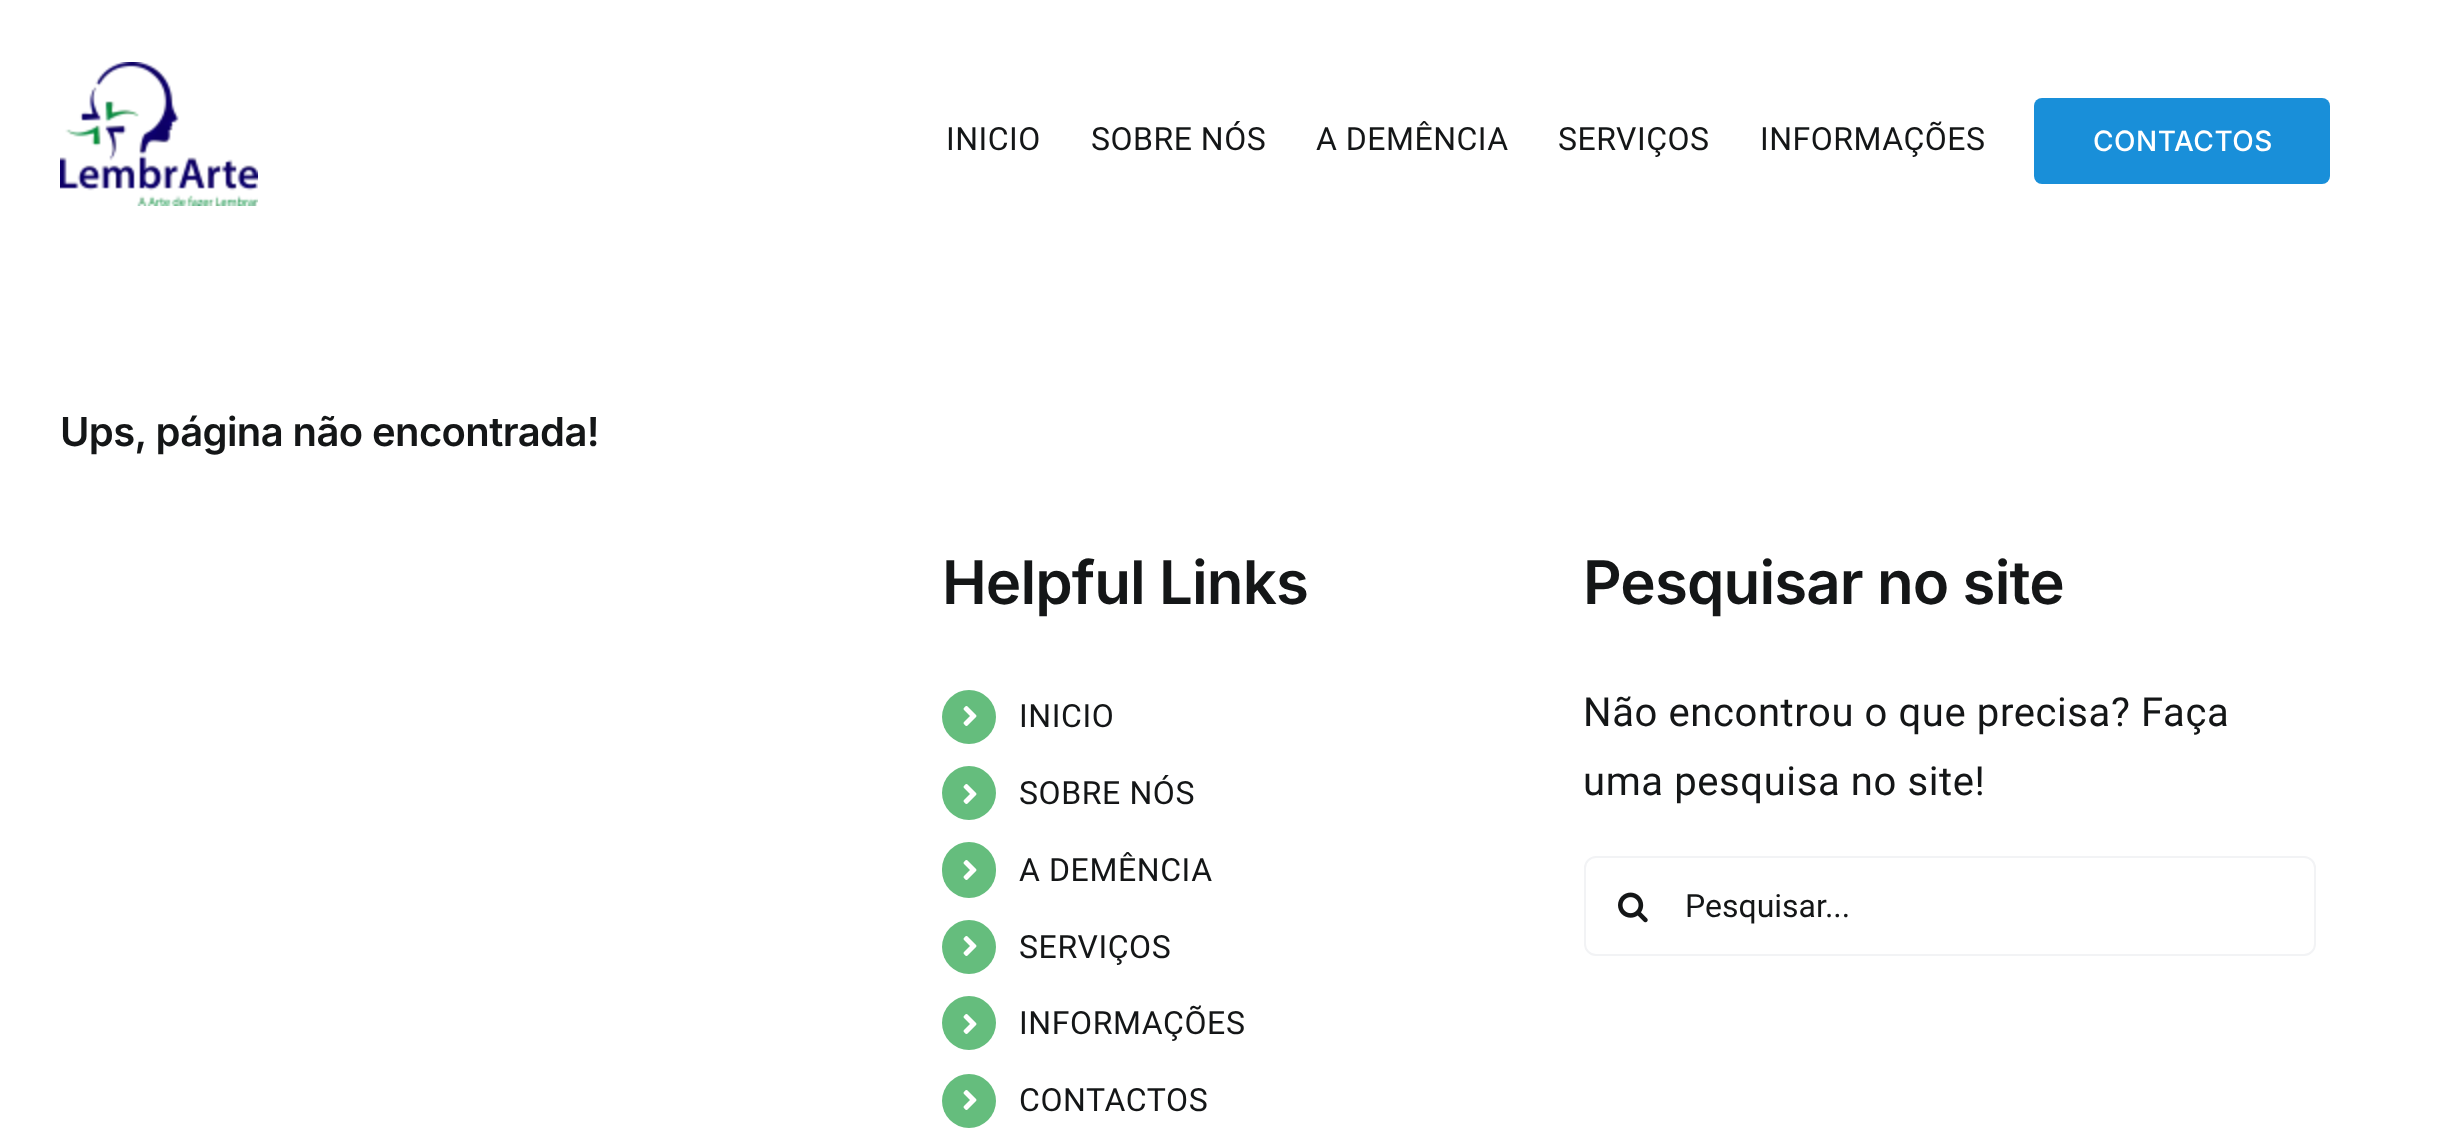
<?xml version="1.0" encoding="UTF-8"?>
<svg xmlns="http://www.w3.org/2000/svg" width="2439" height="1136">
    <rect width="100%" height="100%" fill="#FFFFFF"/>
    <image x="60" y="62" width="198" height="144" href="img_01.png"/>
    <text x="946" y="150" font-family="Roboto" font-size="32" letter-spacing="0.5" fill="#141617">INICIO</text>
    <text x="1091" y="150" font-family="Roboto" font-size="32" letter-spacing="0.5" fill="#141617">SOBRE NÓS</text>
    <text x="1316" y="150" font-family="Roboto" font-size="32" letter-spacing="0.5" fill="#141617">A DEMÊNCIA</text>
    <text x="1558" y="150" font-family="Roboto" font-size="32" letter-spacing="0.5" fill="#141617">SERVIÇOS</text>
    <text x="1760" y="150" font-family="Roboto" font-size="32" letter-spacing="0.5" fill="#141617">INFORMAÇÕES</text>
    <rect x="2034" y="98" width="296" height="86" rx="8" fill="#198FD9"/>
    <text x="2093" y="151" font-family="Inter" font-size="28" font-weight="500" letter-spacing="0.5" fill="#FFFFFF">CONTACTOS</text>
    <text x="60" y="446" font-family="Inter" font-size="40" font-weight="600" letter-spacing="-0.6" fill="#141617">Ups, página não encontrada!</text>
    <text x="942" y="604" font-family="Inter" font-size="60" font-weight="600" letter-spacing="-0.9" fill="#141617">Helpful Links</text>
    <circle cx="969" cy="717" r="27" fill="#65BD7D"/>
    <image x="963" y="706" width="14" height="20" href="img_02.png"/>
    <text x="1019" y="727" font-family="Roboto" font-size="32" letter-spacing="0.6" fill="#141617">INICIO</text>
    <circle cx="969" cy="793" r="27" fill="#65BD7D"/>
    <image x="963" y="784" width="14" height="20" href="img_02.png"/>
    <text x="1019" y="804" font-family="Roboto" font-size="32" letter-spacing="0.6" fill="#141617">SOBRE NÓS</text>
    <rect x="942" y="842" width="54" height="56" rx="27" fill="#65BD7D"/>
    <image x="963" y="860" width="14" height="20" href="img_02.png"/>
    <text x="1019" y="881" font-family="Roboto" font-size="32" letter-spacing="0.6" fill="#141617">A DEMÊNCIA</text>
    <circle cx="969" cy="947" r="27" fill="#65BD7D"/>
    <image x="963" y="936" width="14" height="20" href="img_02.png"/>
    <text x="1019" y="958" font-family="Roboto" font-size="32" letter-spacing="0.6" fill="#141617">SERVIÇOS</text>
    <circle cx="969" cy="1023" r="27" fill="#65BD7D"/>
    <image x="963" y="1014" width="14" height="20" href="img_02.png"/>
    <text x="1019" y="1034" font-family="Roboto" font-size="32" letter-spacing="0.6" fill="#141617">INFORMAÇÕES</text>
    <circle cx="969" cy="1101" r="27" fill="#65BD7D"/>
    <image x="963" y="1090" width="14" height="20" href="img_02.png"/>
    <text x="1019" y="1111" font-family="Roboto" font-size="32" letter-spacing="0.6" fill="#141617">CONTACTOS</text>
    <text x="1583" y="604" font-family="Inter" font-size="60" font-weight="600" letter-spacing="-0.9" fill="#141617">Pesquisar no site</text>
    <text font-family="Roboto" font-size="40" letter-spacing="0.6" fill="#141617">
        <tspan x="1583" y="726">Não encontrou o que precisa? Faça</tspan>
        <tspan x="1583" y="795">uma pesquisa no site!</tspan>
    </text>
    <rect x="1585" y="857" width="730" height="98" rx="11" fill="none" stroke="#F2F3F5" stroke-width="2"/>
    <image x="1618" y="892" width="30" height="31" href="img_03.png"/>
    <text x="1685" y="917" font-family="Roboto" font-size="32" fill="#141617">Pesquisar...</text>
</svg>
